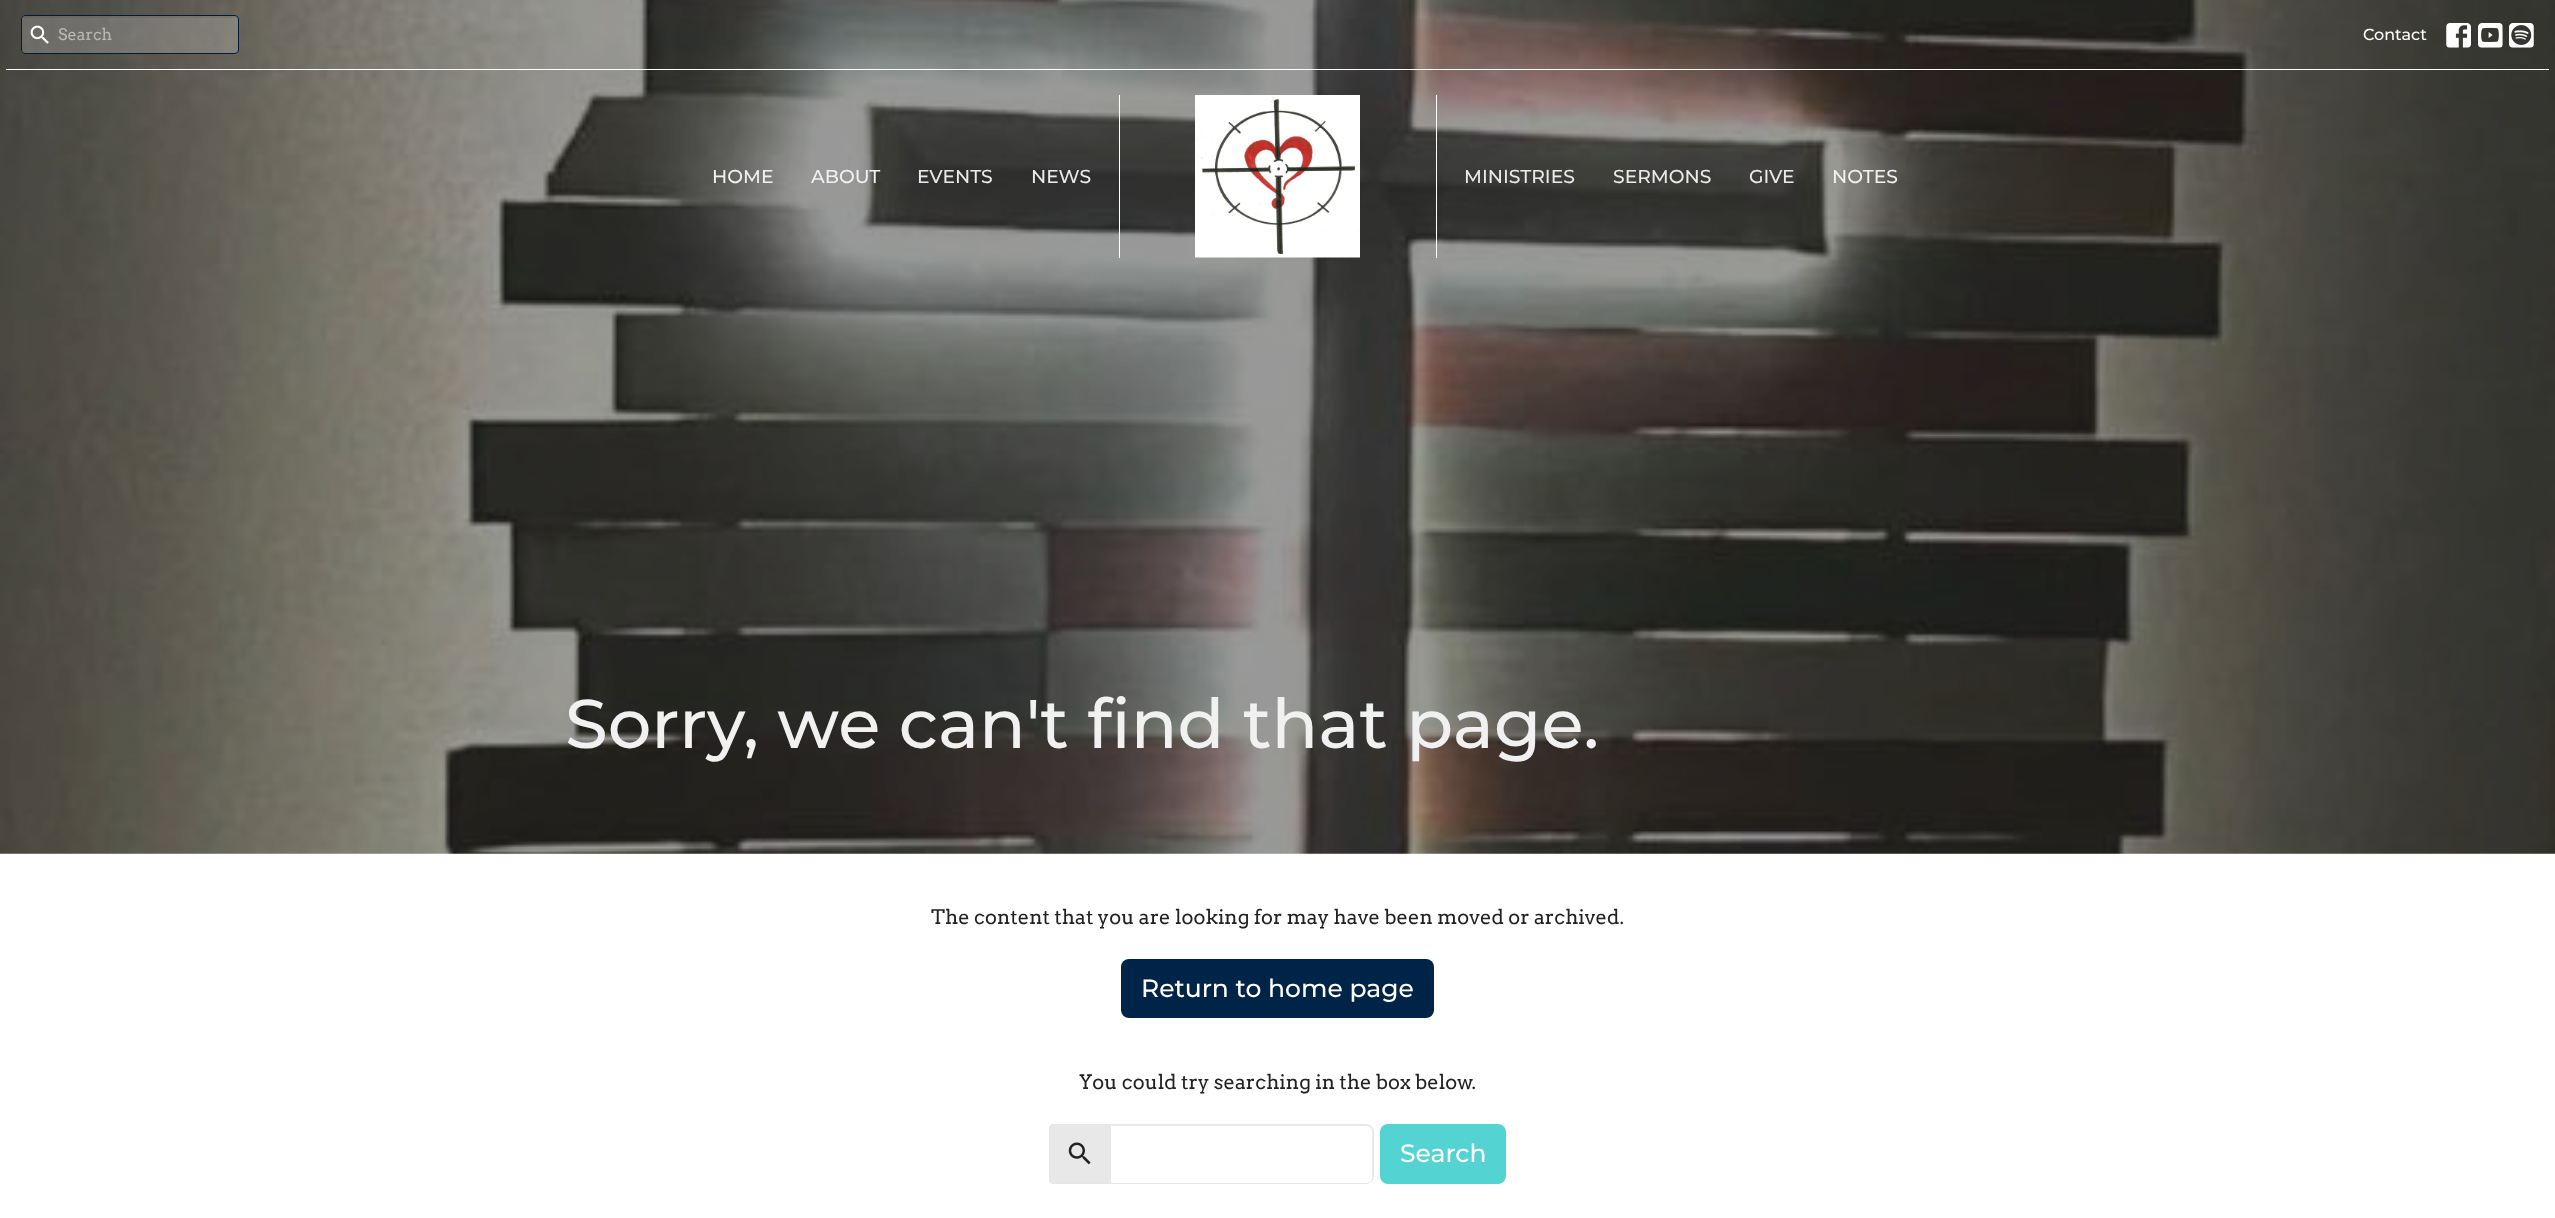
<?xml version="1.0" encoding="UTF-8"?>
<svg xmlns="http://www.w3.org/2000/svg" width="2555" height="1218">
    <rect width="100%" height="100%" fill="#FFFFFF"/>
    <image x="0" y="0" width="2555" height="854" href="img_06.png"/>
    <rect x="6" y="69" width="2543" height="1" fill="#FFFFFF"/>
    <rect x="21" y="15" width="218" height="39" rx="4" fill="#FFFFFF" fill-opacity="0.2"/>
    <path d="M 25 18 H 235 C 236 18 238 19 238 20 V 18 C 238 17 237 16 236 16 H 26 C 24 16 23 17 23 18 Z" fill="#000000" fill-opacity="0.07"/>
    <rect x="21.5" y="15.5" width="217" height="38" rx="3.5" fill="none" stroke="#001C38"/>
    <image x="30" y="25" width="19" height="19" href="img_01.png"/>
    <text x="58" y="40" font-family="Arvo" font-size="16" fill="#B8B8B4">Search</text>
    <text x="2363" y="40" font-family="Montserrat" font-size="16" font-weight="500" fill="#FFFFFF">Contact</text>
    <image x="2446" y="23" width="25" height="25" href="img_02.png"/>
    <image x="2478" y="23" width="25" height="25" href="img_03.png"/>
    <image x="2509" y="23" width="25" height="25" href="img_04.png"/>
    <text x="712" y="183" font-family="Montserrat" font-size="18.75" font-weight="500" fill="#F1F1F1">HOME</text>
    <text x="811" y="183" font-family="Montserrat" font-size="18.75" font-weight="500" fill="#F1F1F1">ABOUT</text>
    <text x="917" y="183" font-family="Montserrat" font-size="18.75" font-weight="500" fill="#EAEAEA">EVENTS</text>
    <text x="1031" y="183" font-family="Montserrat" font-size="18.75" font-weight="500" fill="#EAEAEA">NEWS</text>
    <rect x="1436" y="95" width="1" height="163" fill="#FFFFFF"/>
    <rect x="1119" y="95" width="1" height="163" fill="#FFFFFF"/>
    <image x="1195" y="95" width="165" height="163" href="img_05.png"/>
    <text x="1464" y="183" font-family="Montserrat" font-size="18.75" font-weight="500" fill="#EAEAEA">MINISTRIES</text>
    <text x="1613" y="183" font-family="Montserrat" font-size="18.75" font-weight="500" fill="#EAEAEA">SERMONS</text>
    <text x="1749" y="183" font-family="Montserrat" font-size="18.75" font-weight="500" fill="#EAEAEA">GIVE</text>
    <text x="1832" y="183" font-family="Montserrat" font-size="18.75" font-weight="500" fill="#F1F1F1">NOTES</text>
    <text x="565" y="748" font-family="Montserrat" font-size="68.75" font-weight="500" fill="#F1F1F1">Sorry, we can't find that page.</text>
    <text x="931" y="924" font-family="Arvo" font-size="20" fill="#222222">The content that you are looking for may have been moved or archived.</text>
    <rect x="1121" y="959" width="313" height="59" rx="8" fill="#002447"/>
    <text x="1141" y="997" font-family="Montserrat" font-size="25" font-weight="500" fill="#FFFFFF">Return to home page</text>
    <text x="1079" y="1089" font-family="Arvo" font-size="20" fill="#222222">You could try searching in the box below.</text>
    <path d="M 1054 1124 H 1110 V 1184 H 1054 C 1051 1184 1049 1182 1049 1179 V 1129 C 1049 1126 1051 1124 1054 1124 Z" fill="#E8E8E8"/>
    <path d="M 1054 1124 H 1110 V 1184 H 1054 C 1051 1184 1049 1182 1049 1179 V 1129 C 1049 1126 1051 1124 1054 1124 Z M 1054 1125 H 1110 V 1182 H 1054 C 1052 1182 1050 1181 1050 1179 V 1129 C 1050 1127 1052 1125 1054 1125 Z" fill="#E6E6E6" fill-rule="evenodd"/>
    <image x="1068" y="1142" width="23" height="23" href="img_07.png"/>
    <path d="M 1111 1126 H 1366 C 1370 1126 1372 1129 1372 1132 V 1178 C 1372 1179 1372 1180 1371 1181 C 1372 1180 1373 1179 1373 1177 V 1131 C 1373 1128 1370 1125 1367 1125 H 1111 Z" fill="#ECECEC"/>
    <path d="M 1110.5 1124.5 H 1366 C 1370 1124.5 1373.5 1128 1373.5 1132 V 1176 C 1373.5 1180 1370 1183.5 1366 1183.5 H 1110.5 Z" fill="none" stroke="#E6E6E6"/>
    <rect x="1380" y="1124" width="126" height="60" rx="8" fill="#53D3D1"/>
    <text x="1400" y="1162" font-family="Montserrat" font-size="25" font-weight="500" fill="#FFFFFF">Search</text>
</svg>
